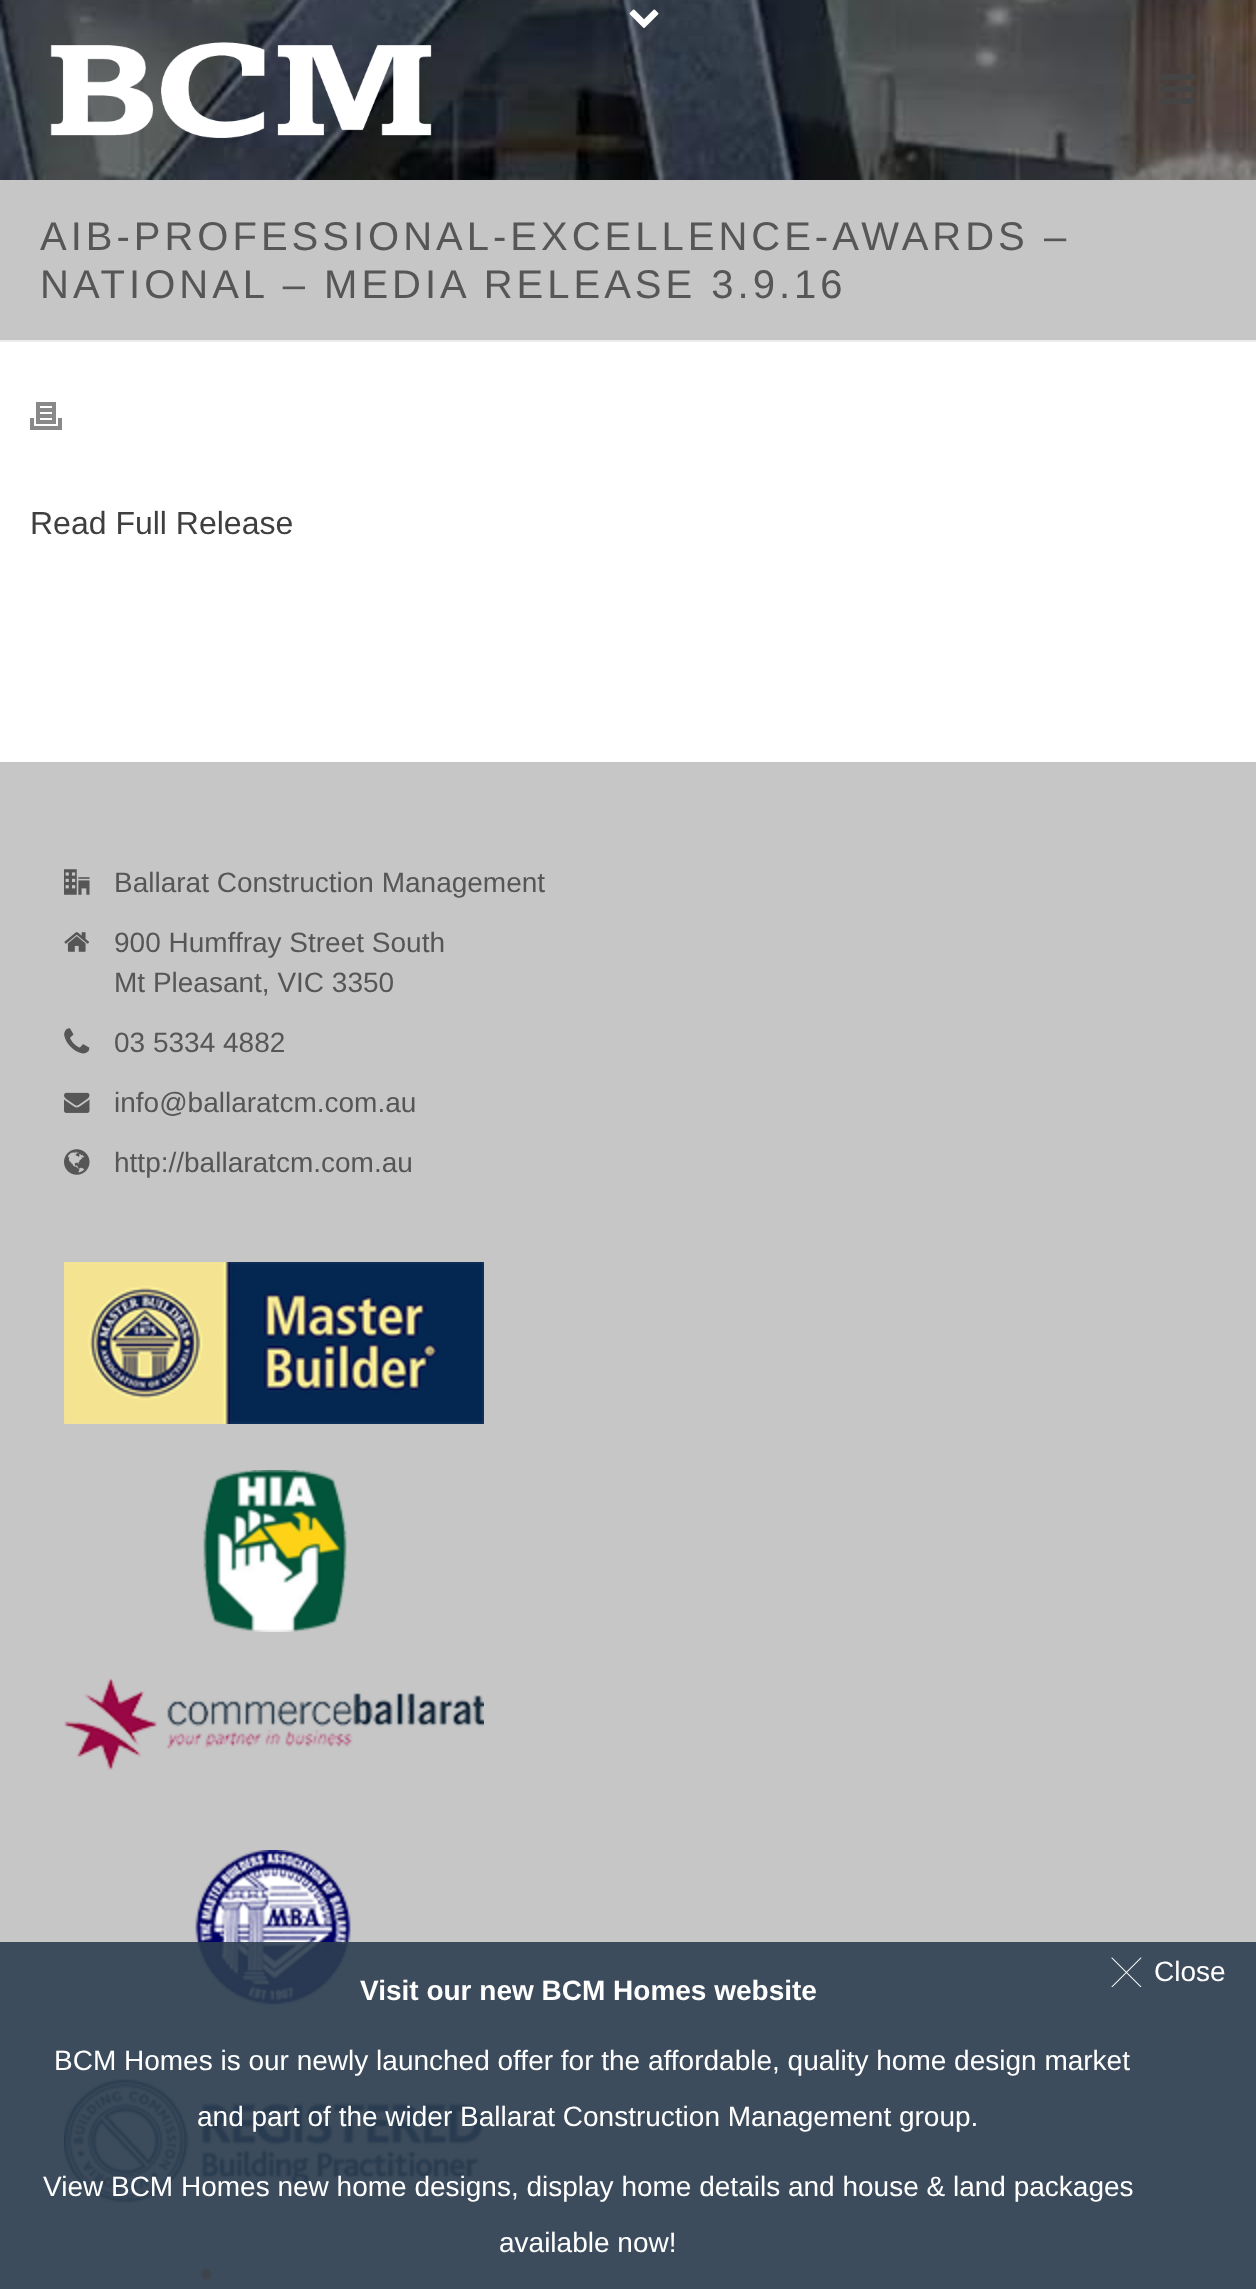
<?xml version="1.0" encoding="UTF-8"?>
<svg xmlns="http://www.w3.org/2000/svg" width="1256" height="2289">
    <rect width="100%" height="100%" fill="#FFFFFF"/>
    <rect x="0" y="180" width="1256" height="160" fill="#C6C6C6"/>
    <rect x="0" y="340" width="1256" height="2" fill="#EDEDED"/>
    <image x="0" y="0" width="1256" height="180" href="img_01.png"/>
    <image x="629" y="9" width="30" height="19" href="img_02.png"/>
    <image x="50" y="42" width="382" height="96" href="img_03.png"/>
    <rect x="1160" y="74" width="36" height="6" rx="3" fill="#444444"/>
    <rect x="1160" y="86" width="36" height="6" rx="3" fill="#444444"/>
    <rect x="1160" y="98" width="36" height="6" rx="3" fill="#444444"/>
    <text font-family="Liberation Sans" font-size="40" letter-spacing="4" fill="#565656">
        <tspan x="40" y="250">AIB-PROFESSIONAL-EXCELLENCE-AWARDS –</tspan>
        <tspan x="40" y="298">NATIONAL – MEDIA RELEASE 3.9.16</tspan>
    </text>
    <image x="30" y="402" width="32" height="28" href="img_04.png"/>
    <text x="30" y="534" font-family="Liberation Sans" font-size="32" fill="#3F3F3F">Read Full Release</text>
    <rect x="0" y="762" width="1256" height="1527" fill="#C6C6C6"/>
    <image x="64" y="869" width="26" height="26" href="img_05.png"/>
    <text x="114" y="892" font-family="Liberation Sans" font-size="28" fill="#565656">Ballarat Construction Management</text>
    <image x="64" y="932" width="25" height="20" href="img_06.png"/>
    <text font-family="Liberation Sans" font-size="28" fill="#565656">
        <tspan x="114" y="952">900 Humffray Street South</tspan>
        <tspan x="114" y="992">Mt Pleasant, VIC 3350</tspan>
    </text>
    <image x="64" y="1028" width="26" height="26" href="img_07.png"/>
    <text x="114" y="1052" font-family="Liberation Sans" font-size="28" fill="#565656">03 5334 4882</text>
    <image x="64" y="1092" width="26" height="21" href="img_08.png"/>
    <text x="114" y="1112" font-family="Liberation Sans" font-size="28" fill="#565656">info@ballaratcm.com.au</text>
    <image x="64" y="1149" width="26" height="26" href="img_09.png"/>
    <text x="114" y="1172" font-family="Liberation Sans" font-size="28" fill="#565656">http://ballaratcm.com.au</text>
    <image x="64" y="1262" width="420" height="162" href="img_10.png"/>
    <image x="203" y="1470" width="144" height="162" href="img_11.png"/>
    <image x="64" y="1678" width="420" height="92" href="img_12.png"/>
    <image x="195" y="1850" width="156" height="155" href="img_13.png"/>
    <image x="64" y="2079" width="419" height="124" href="img_14.png"/>
    <image x="199" y="2268" width="14" height="21" href="img_15.png"/>
    <rect x="0" y="1942" width="1256" height="347" fill="#2D3E50" fill-opacity="0.9"/>
    <image x="1111" y="1957" width="31" height="30" href="img_16.png"/>
    <text x="1154" y="1981" font-family="Liberation Sans" font-size="28" fill="#FFFFFF">Close</text>
    <text x="360" y="2000" font-family="Liberation Sans" font-size="28" font-weight="700" fill="#FFFFFF">Visit our new BCM Homes website</text>
    <text x="54" y="2070" font-family="Liberation Sans" font-size="28" fill="#FFFFFF">BCM Homes is our newly launched offer for the affordable, quality home design market</text>
    <text x="197" y="2126" font-family="Liberation Sans" font-size="28" fill="#FFFFFF">and part of the wider Ballarat Construction Management group.</text>
    <text x="43" y="2196" font-family="Liberation Sans" font-size="28" fill="#FFFFFF">View BCM Homes new home designs, display home details and house &amp; land packages</text>
    <text x="499" y="2252" font-family="Liberation Sans" font-size="28" fill="#FFFFFF">available now!</text>
</svg>
